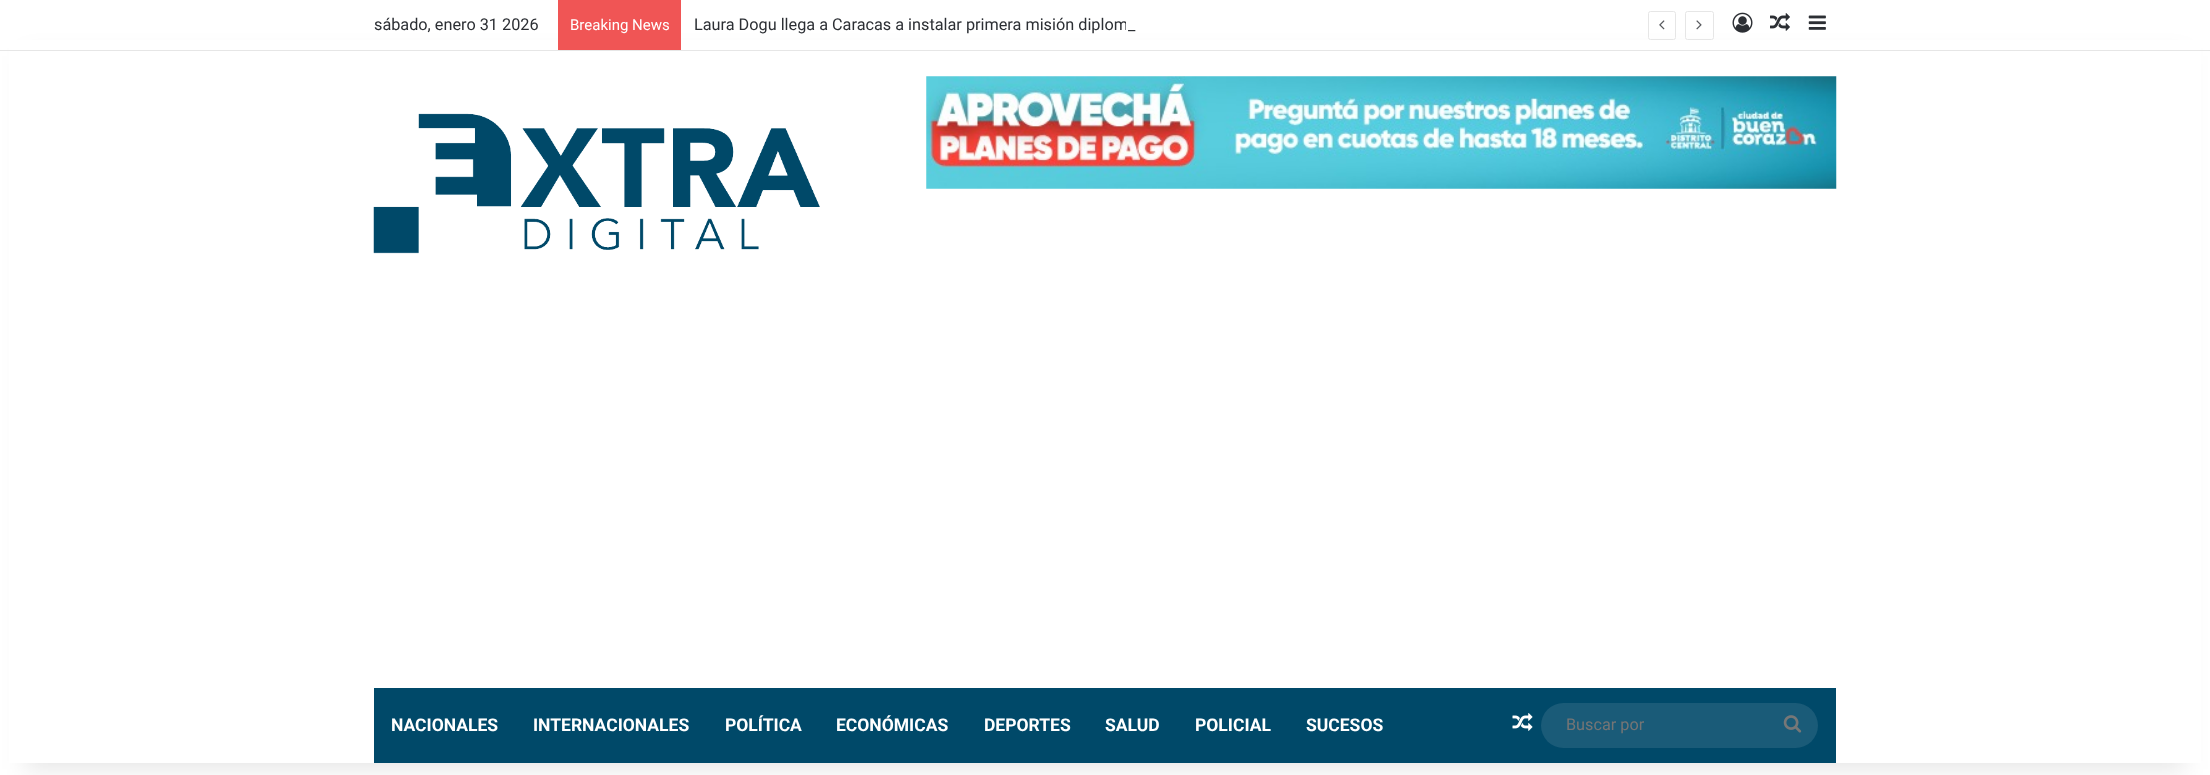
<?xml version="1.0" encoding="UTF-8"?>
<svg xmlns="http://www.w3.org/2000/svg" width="2210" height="775">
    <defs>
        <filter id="blur1" x="-50%" y="-200%" width="200%" height="500%"><feGaussianBlur stdDeviation="12.5"/></filter>
    </defs>
    <rect width="100%" height="100%" fill="#FFFFFF"/>
    <rect x="25" y="56" width="2160" height="713" fill="#000000" fill-opacity="0.1" filter="url(#blur1)"/>
    <rect x="9" y="40" width="2192" height="723" fill="#FFFFFF"/>
    <rect x="0" y="50" width="2210" height="1" fill="#E6E6E6"/>
    <text x="374" y="30" font-family="Roboto" font-size="16.25" fill="#2C2F34">sábado, enero 31 2026</text>
    <rect x="558" y="0" width="123" height="50" fill="#F05555"/>
    <text x="570" y="30" font-family="Roboto" font-size="15" fill="#FFFFFF">Breaking News</text>
    <text x="694" y="30" font-family="Roboto" font-size="16.25" fill="#2C2F34">Laura Dogu llega a Caracas a instalar primera misión diplom</text>
    <rect x="1126" y="21" width="2" height="9" fill="#FFFFFF"/>
    <text x="1128" y="30" font-family="Roboto" font-size="16.25" fill="#2C2F34">_</text>
    <rect x="1648.5" y="11.5" width="27" height="28" rx="2" fill="none" stroke="#E6E6E6"/>
    <image x="1659" y="20" width="6" height="10" href="img_01.png"/>
    <rect x="1685.5" y="11.5" width="28" height="28" rx="2" fill="none" stroke="#E6E6E6"/>
    <image x="1696" y="20" width="6" height="10" href="img_02.png"/>
    <image x="1732" y="12" width="21" height="21" href="img_03.png"/>
    <image x="1770" y="13" width="20" height="18" href="img_04.png"/>
    <image x="1808" y="15" width="18" height="15" href="img_05.png"/>
    <image x="373" y="113" width="447" height="141" href="img_06.png"/>
    <image x="926" y="76" width="911" height="113" href="img_07.png"/>
    <rect x="374" y="688" width="1462" height="75" fill="#004969"/>
    <text x="391" y="731" font-family="Roboto" font-size="17.5" font-weight="700" fill="#FFFFFF">NACIONALES</text>
    <text x="533" y="731" font-family="Roboto" font-size="17.5" font-weight="700" fill="#FFFFFF">INTERNACIONALES</text>
    <text x="725" y="731" font-family="Roboto" font-size="17.5" font-weight="700" fill="#FFFFFF">POLÍTICA</text>
    <text x="836" y="731" font-family="Roboto" font-size="17.5" font-weight="700" fill="#FFFFFF">ECONÓMICAS</text>
    <text x="984" y="731" font-family="Roboto" font-size="17.5" font-weight="700" fill="#FFFFFF">DEPORTES</text>
    <text x="1105" y="731" font-family="Roboto" font-size="17.5" font-weight="700" fill="#FFFFFF">SALUD</text>
    <text x="1195" y="731" font-family="Roboto" font-size="17.5" font-weight="700" fill="#FFFFFF">POLICIAL</text>
    <text x="1306" y="731" font-family="Roboto" font-size="17.5" font-weight="700" fill="#FFFFFF">SUCESOS</text>
    <image x="1512" y="713" width="21" height="18" href="img_08.png"/>
    <rect x="1541" y="703" width="277" height="45" rx="22.5" fill="#1A5B78"/>
    <text x="1566" y="730" font-family="Roboto" font-size="16.25" fill="#757575">Buscar por</text>
    <image x="1783" y="715" width="19" height="18" href="img_09.png"/>
</svg>
